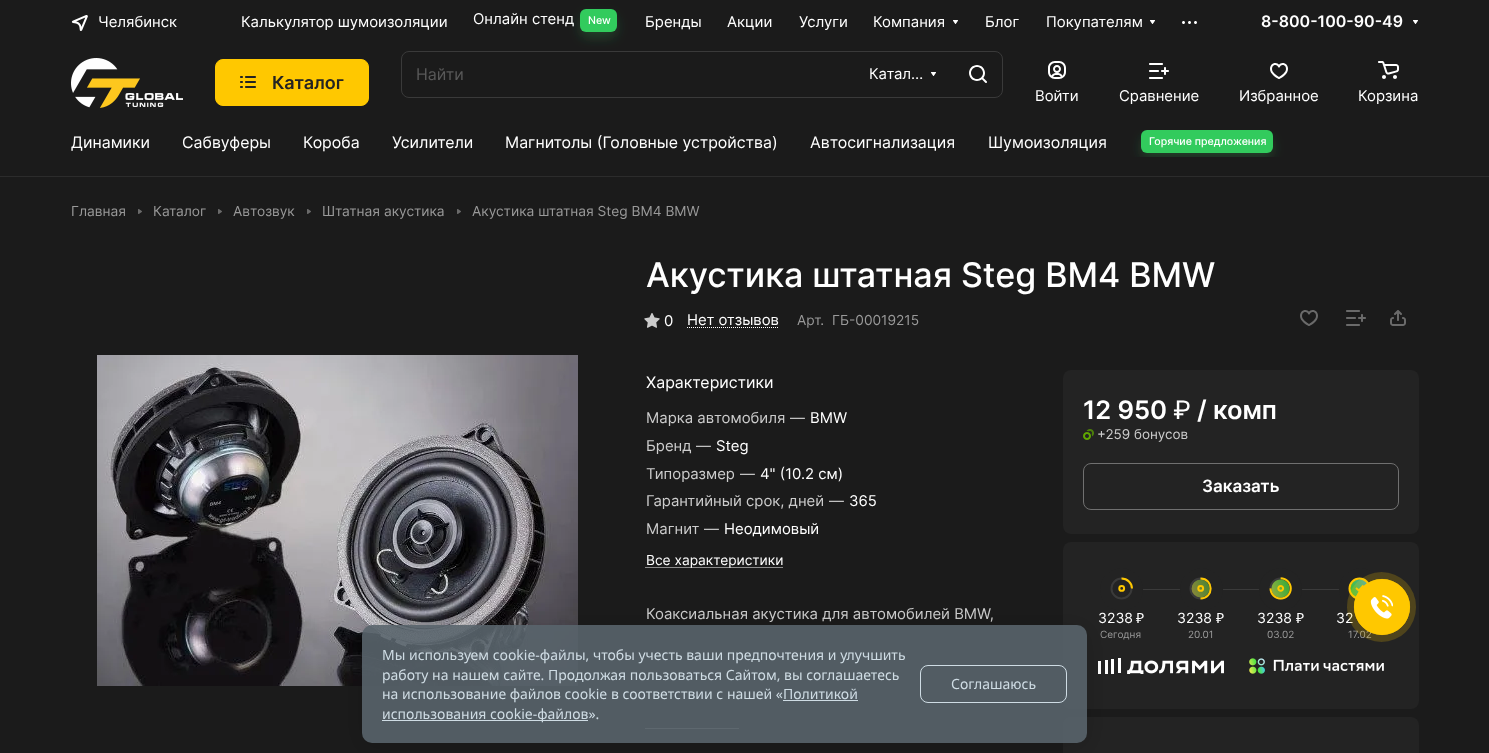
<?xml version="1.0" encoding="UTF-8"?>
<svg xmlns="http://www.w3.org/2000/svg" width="1489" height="753">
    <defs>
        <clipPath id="clip1"><path d="M 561 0 H 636 V 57 H 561 Z M 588 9 H 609 C 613.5 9 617 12.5 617 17 V 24 C 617 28.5 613.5 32 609 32 H 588 C 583.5 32 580 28.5 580 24 V 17 C 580 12.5 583.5 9 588 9 Z" clip-rule="evenodd"/></clipPath>
        <filter id="blur1" x="-50%" y="-200%" width="200%" height="500%"><feGaussianBlur stdDeviation="6"/></filter>
        <clipPath id="clip2"><rect x="71" y="130" width="1348" height="27"/></clipPath>
        <clipPath id="clip3"><rect x="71" y="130" width="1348" height="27"/></clipPath>
        <clipPath id="clip4"><path d="M 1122 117 H 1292 V 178 H 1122 Z M 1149 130 H 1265 C 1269.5 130 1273 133.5 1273 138 V 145 C 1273 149.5 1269.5 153 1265 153 H 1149 C 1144.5 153 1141 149.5 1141 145 V 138 C 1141 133.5 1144.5 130 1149 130 Z" clip-rule="evenodd"/></clipPath>
        <linearGradient id="g1" gradientUnits="userSpaceOnUse" x1="1189" y1="593" x2="1234" y2="579"><stop offset="0.03" stop-color="#8E8839"/><stop offset="0.58" stop-color="#388434"/><stop offset="1" stop-color="#367691"/></linearGradient>
        <linearGradient id="g2" gradientUnits="userSpaceOnUse" x1="1263" y1="594" x2="1306" y2="581"><stop offset="0" stop-color="#B8B042"/><stop offset="0.57" stop-color="#40AB3A"/><stop offset="1" stop-color="#3E97BD"/></linearGradient>
        <linearGradient id="g3" gradientUnits="userSpaceOnUse" x1="1328" y1="599" x2="1372" y2="585"><stop offset="0" stop-color="#CDC446"/><stop offset="0.56" stop-color="#45BE3D"/><stop offset="0.98" stop-color="#41A7D3"/></linearGradient>
        <clipPath id="clip5"><path d="M 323 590 H 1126 V 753 H 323 Z M 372 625 H 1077 C 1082.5 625 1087 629.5 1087 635 V 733 C 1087 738.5 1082.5 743 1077 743 H 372 C 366.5 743 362 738.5 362 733 V 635 C 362 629.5 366.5 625 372 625 Z" clip-rule="evenodd"/></clipPath>
        <filter id="blur2" x="-50%" y="-200%" width="200%" height="500%"><feGaussianBlur stdDeviation="12.5"/></filter>
    </defs>
    <rect width="100%" height="100%" fill="#1B1B1B"/>
    <rect x="0" y="176" width="1489" height="1" fill="#2C2C2C"/>
    <image x="71" y="15" width="17" height="16" href="img_01.png"/>
    <text x="98" y="27" font-family="Inter" font-size="14.9" fill="#FFFFFF">Челябинск</text>
    <text x="241" y="27" font-family="Inter" font-size="14.9" fill="#FFFFFF">Калькулятор шумоизоляции</text>
    <text x="473" y="24" font-family="Inter" font-size="14.9" fill="#FFFFFF">Онлайн стенд</text>
    <rect x="580" y="9" width="37" height="23" rx="6" fill="#32CB5D"/>
    <rect x="401.5" y="51.5" width="601" height="46" rx="7.5" fill="none" stroke="#3A3A3A"/>
    <g clip-path="url(#clip1)">
        <rect x="580" y="15" width="37" height="23" rx="8" fill="#32CB5D" fill-opacity="0.2" filter="url(#blur1)"/>
    </g>
    <text x="588" y="24" font-family="Inter" font-size="10.6" font-weight="500" fill="#FFFFFF">New</text>
    <text x="645" y="27" font-family="Inter" font-size="14.9" fill="#FFFFFF">Бренды</text>
    <text x="727" y="27" font-family="Inter" font-size="14.9" fill="#FFFFFF">Акции</text>
    <text x="799" y="27" font-family="Inter" font-size="14.9" fill="#FFFFFF">Услуги</text>
    <text x="873" y="27" font-family="Inter" font-size="14.9" fill="#FFFFFF">Компания</text>
    <image x="953" y="20" width="5" height="4" href="img_02.png"/>
    <text x="985" y="27" font-family="Inter" font-size="14.9" fill="#FFFFFF">Блог</text>
    <text x="1046" y="27" font-family="Inter" font-size="14.9" fill="#FFFFFF">Покупателям</text>
    <image x="1150" y="20" width="5" height="4" href="img_02.png"/>
    <image x="1182" y="21" width="15" height="3" href="img_03.png"/>
    <text x="1261" y="27" font-family="Inter" font-size="15.9" font-weight="600" fill="#FFFFFF">8-800-100-90-49</text>
    <image x="1413" y="20" width="5" height="4" href="img_02.png"/>
    <image x="71" y="58" width="112" height="50" href="img_04.png"/>
    <rect x="215.5" y="59.5" width="153" height="46" rx="7.5" fill="#FFC800" stroke="#FFC800"/>
    <image x="240" y="76" width="16" height="12" href="img_05.png"/>
    <text x="272" y="89" font-family="Inter" font-size="18" font-weight="600" fill="#232323">Каталог</text>
    <text x="416" y="80" font-family="Inter" font-size="16" fill="#595959">Найти</text>
    <text x="869" y="79" font-family="Inter" font-size="14.9" fill="#FFFFFF">Катал…</text>
    <image x="931" y="72" width="5" height="4" href="img_02.png"/>
    <image x="969" y="65" width="18" height="18" href="img_06.png"/>
    <image x="1048" y="61" width="18" height="18" href="img_07.png"/>
    <text x="1035" y="101" font-family="Inter" font-size="14.9" fill="#FFFFFF">Войти</text>
    <image x="1149" y="63" width="20" height="16" href="img_08.png"/>
    <text x="1119" y="101" font-family="Inter" font-size="14.9" fill="#FFFFFF">Сравнение</text>
    <image x="1270" y="63" width="18" height="16" href="img_09.png"/>
    <text x="1239" y="101" font-family="Inter" font-size="14.9" fill="#FFFFFF">Избранное</text>
    <image x="1378" y="61" width="21" height="18" href="img_10.png"/>
    <text x="1358" y="101" font-family="Inter" font-size="14.9" fill="#FFFFFF">Корзина</text>
    <g clip-path="url(#clip2)">
        <text x="71" y="148" font-family="Inter" font-size="15.9" fill="#FFFFFF">Динамики</text>
    </g>
    <text x="182" y="148" font-family="Inter" font-size="15.9" fill="#FFFFFF">Сабвуферы</text>
    <text x="303" y="148" font-family="Inter" font-size="15.9" fill="#FFFFFF">Короба</text>
    <text x="392" y="148" font-family="Inter" font-size="15.9" fill="#FFFFFF">Усилители</text>
    <text x="505" y="148" font-family="Inter" font-size="15.9" fill="#FFFFFF">Магнитолы (Головные устройства)</text>
    <text x="810" y="148" font-family="Inter" font-size="15.9" fill="#FFFFFF">Автосигнализация</text>
    <text x="988" y="148" font-family="Inter" font-size="15.9" fill="#FFFFFF">Шумоизоляция</text>
    <rect x="1141" y="130" width="132" height="23" rx="6" fill="#32CB5D"/>
    <g clip-path="url(#clip3)">
        <g clip-path="url(#clip4)">
            <rect x="1141" y="136" width="132" height="23" rx="8" fill="#32CB5D" fill-opacity="0.2" filter="url(#blur1)"/>
        </g>
    </g>
    <text x="1149" y="145" font-family="Inter" font-size="10.6" font-weight="500" fill="#FFFFFF">Горячие предложения</text>
    <text x="71" y="216" font-family="Inter" font-size="13.75" fill="#999999">Главная</text>
    <image x="138" y="209" width="4" height="5" href="img_11.png"/>
    <text x="153" y="216" font-family="Inter" font-size="13.75" fill="#999999">Каталог</text>
    <image x="218" y="209" width="4" height="5" href="img_11.png"/>
    <text x="233" y="216" font-family="Inter" font-size="13.75" fill="#999999">Автозвук</text>
    <image x="307" y="209" width="4" height="5" href="img_11.png"/>
    <text x="322" y="216" font-family="Inter" font-size="13.75" fill="#999999">Штатная акустика</text>
    <image x="457" y="209" width="4" height="5" href="img_11.png"/>
    <text x="472" y="216" font-family="Inter" font-size="13.75" fill="#999999">Акустика штатная Steg BM4 BMW</text>
    <image x="97" y="355" width="481" height="331" href="img_12.png"/>
    <text x="646" y="287" font-family="Inter" font-size="34" font-weight="500" fill="#FFFFFF">Акустика штатная Steg BM4 BMW</text>
    <image x="644" y="313" width="16" height="15" href="img_13.png"/>
    <text x="664" y="326" font-family="Inter" font-size="14.9" fill="#FFFFFF">0</text>
    <text x="687" y="325" font-family="Inter" font-size="14.9" fill="#FFFFFF">Нет отзывов</text>
    <path d="M 687 327.5 H 778.5" fill="none" stroke="#FFFFFF" stroke-dasharray="1 1"/>
    <text x="797" y="325" font-family="Inter" font-size="13.75" fill="#999999">Арт.</text>
    <text x="832" y="325" font-family="Inter" font-size="13.75" fill="#999999">ГБ-00019215</text>
    <image x="1300" y="310" width="18" height="16" href="img_14.png"/>
    <image x="1346" y="310" width="20" height="16" href="img_15.png"/>
    <image x="1390" y="310" width="16" height="16" href="img_16.png"/>
    <text x="646" y="388" font-family="Inter" font-size="15.9" fill="#FFFFFF">Характеристики</text>
    <text x="646" y="423" font-family="Inter" font-size="14.9" fill="#CCCCCC">Марка автомобиля</text>
    <text x="790" y="423" font-family="Inter" font-size="14.9" fill="#CCCCCC">—</text>
    <text x="810" y="423" font-family="Inter" font-size="14.9" fill="#FFFFFF">BMW</text>
    <text x="646" y="451" font-family="Inter" font-size="14.9" fill="#CCCCCC">Бренд</text>
    <text x="696" y="451" font-family="Inter" font-size="14.9" fill="#CCCCCC">—</text>
    <text x="716" y="451" font-family="Inter" font-size="14.9" fill="#FFFFFF">Steg</text>
    <text x="646" y="479" font-family="Inter" font-size="14.9" fill="#CCCCCC">Типоразмер</text>
    <text x="740" y="479" font-family="Inter" font-size="14.9" fill="#CCCCCC">—</text>
    <text x="760" y="479" font-family="Inter" font-size="14.9" fill="#FFFFFF">4" (10.2 см)</text>
    <text x="646" y="506" font-family="Inter" font-size="14.9" fill="#CCCCCC">Гарантийный срок, дней</text>
    <text x="829" y="506" font-family="Inter" font-size="14.9" fill="#CCCCCC">—</text>
    <text x="849" y="506" font-family="Inter" font-size="14.9" fill="#FFFFFF">365</text>
    <text x="646" y="534" font-family="Inter" font-size="14.9" fill="#CCCCCC">Магнит</text>
    <text x="704" y="534" font-family="Inter" font-size="14.9" fill="#CCCCCC">—</text>
    <text x="724" y="534" font-family="Inter" font-size="14.9" fill="#FFFFFF">Неодимовый</text>
    <path d="M 645.5 567.5 H 783.5" fill="none" stroke="#FFFFFF" stroke-dasharray="1 1"/>
    <text x="646" y="565" font-family="Inter" font-size="13.75" fill="#FFFFFF">Все характеристики</text>
    <text x="646" y="619" font-family="Inter" font-size="14.9" fill="#CCCCCC">Коаксиальная акустика для автомобилей BMW,</text>
    <path d="M 645.5 728.5 H 738.5" fill="none" stroke="#FFFFFF" stroke-dasharray="1 1"/>
    <rect x="1063" y="370" width="356" height="164" rx="8" fill="#232323"/>
    <text x="1083" y="419" font-family="Inter" font-size="25.5" font-weight="600" fill="#FFFFFF">12 950</text>
    <text x="1173" y="419" font-family="'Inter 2'" font-size="25.5" fill="#FFFFFF">₽</text>
    <text x="1197" y="419" font-family="Inter" font-size="25.5" font-weight="600" fill="#FFFFFF">/ комп</text>
    <image x="1083" y="429" width="11" height="11" href="img_17.png"/>
    <text x="1097" y="439" font-family="Inter" font-size="13.5" fill="#CCCCCC">+259 бонусов</text>
    <rect x="1083.5" y="463.5" width="315" height="46" rx="7.5" fill="none" stroke="#707070"/>
    <text x="1202" y="492" font-family="Inter" font-size="17" font-weight="600" fill="#FFFFFF">Заказать</text>
    <rect x="1063" y="542" width="356" height="167" rx="8" fill="#232323"/>
    <rect x="1142" y="589" width="198" height="1" fill="#3A3A3A"/>
    <circle cx="1121.5" cy="589.5" r="21.5" fill="#232323"/>
    <circle cx="1121.5" cy="588.5" r="10" fill="none" stroke="#3A3A3A" stroke-width="2"/>
    <path d="M 1132 588.5 C 1132 583 1127.5 578.5 1121.5 578.5" fill="none" stroke="#FFC800" stroke-width="2"/>
    <circle cx="1121.7" cy="588.4" r="2.4" fill="none" stroke="#FFC800" stroke-width="2"/>
    <text x="1098" y="623" font-family="Inter" font-size="14" fill="#FFFFFF">3238</text>
    <text x="1136" y="623" font-family="Noto Sans" font-size="14" fill="#FFFFFF">₽</text>
    <text x="1100" y="638" font-family="Inter" font-size="10" fill="#999999">Сегодня</text>
    <circle cx="1201.5" cy="589.5" r="21.5" fill="#232323"/>
    <circle cx="1201" cy="589" r="10" fill="url(#g1)"/>
    <circle cx="1200.5" cy="588.5" r="10" fill="none" stroke="#3A3A3A" stroke-width="2"/>
    <path d="M 1200.5 598.5 C 1214 598.5 1214 578.5 1200.5 578.5" fill="none" stroke="#FFC800" stroke-width="2"/>
    <circle cx="1200.7" cy="588.4" r="2.4" fill="none" stroke="#FFC800" stroke-width="2"/>
    <text x="1177" y="623" font-family="Inter" font-size="14" fill="#FFFFFF">3238</text>
    <text x="1216" y="623" font-family="Noto Sans" font-size="14" fill="#FFFFFF">₽</text>
    <text x="1188" y="638" font-family="Inter" font-size="10" fill="#999999">20.01</text>
    <circle cx="1280.5" cy="589.5" r="21.5" fill="#232323"/>
    <circle cx="1280" cy="589" r="10" fill="url(#g2)"/>
    <image x="1269" y="577" width="23" height="23" href="img_18.png"/>
    <text x="1257" y="623" font-family="Inter" font-size="14" fill="#FFFFFF">3238</text>
    <text x="1296" y="623" font-family="Noto Sans" font-size="14" fill="#FFFFFF">₽</text>
    <text x="1267" y="638" font-family="Inter" font-size="10" fill="#999999">03.02</text>
    <circle cx="1360.5" cy="589.5" r="21.5" fill="#232323"/>
    <circle cx="1360" cy="589" r="10" fill="url(#g3)"/>
    <circle cx="1359.5" cy="588.5" r="10" fill="none" stroke="#FFC800" stroke-width="2"/>
    <path d="M 1356 588 L 1359 590.5 L 1363.5 585.5" fill="none" stroke="#FFC800" stroke-width="2"/>
    <text x="1336" y="623" font-family="Inter" font-size="14" fill="#FFFFFF">32</text>
    <text x="1348" y="638" font-family="Inter" font-size="10" fill="#999999">17.02</text>
    <image x="1098" y="658" width="126" height="16" href="img_19.png"/>
    <image x="1249" y="658" width="135" height="16" href="img_20.png"/>
    <rect x="1063" y="717" width="356" height="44" rx="8" fill="#232323"/>
    <rect x="1347" y="572" width="69" height="70" rx="34.5" fill="#FFC800" fill-opacity="0.2"/>
    <circle cx="1382" cy="607" r="27.6" fill="none" stroke="#FFC800" stroke-width="0.8"/>
    <circle cx="1382" cy="607" r="28" fill="#FFC800"/>
    <image x="1370" y="595" width="23" height="24" href="img_21.png"/>
    <g clip-path="url(#clip5)">
        <rect x="362" y="629" width="725" height="118" rx="10" fill="#000000" fill-opacity="0.15" filter="url(#blur2)"/>
    </g>
    <rect x="362" y="625" width="725" height="118" rx="10" fill="#59646C" fill-opacity="0.9"/>
    <text font-family="Noto Sans" font-size="14" fill="#CFDCE4">
        <tspan x="382" y="660">Мы используем cookie-файлы, чтобы учесть ваши предпочтения и улучшить</tspan>
        <tspan x="382" y="680">работу на нашем сайте. Продолжая пользоваться Сайтом, вы соглашаетесь</tspan>
        <tspan x="382" y="699">на использование файлов cookie в соответствии с нашей «Политикой</tspan>
    </text>
    <rect x="382" y="720" width="206" height="1" fill="#CFDCE4"/>
    <text x="382" y="719" font-family="Noto Sans" font-size="14" fill="#CFDCE4">использования cookie-файлов».</text>
    <rect x="783" y="700" width="75" height="1" fill="#CFDCE4"/>
    <rect x="920.5" y="665.5" width="146" height="37" rx="7.5" fill="none" stroke="#CFDCE4"/>
    <text x="951" y="689" font-family="Noto Sans" font-size="14" fill="#CFDCE4">Соглашаюсь</text>
</svg>
